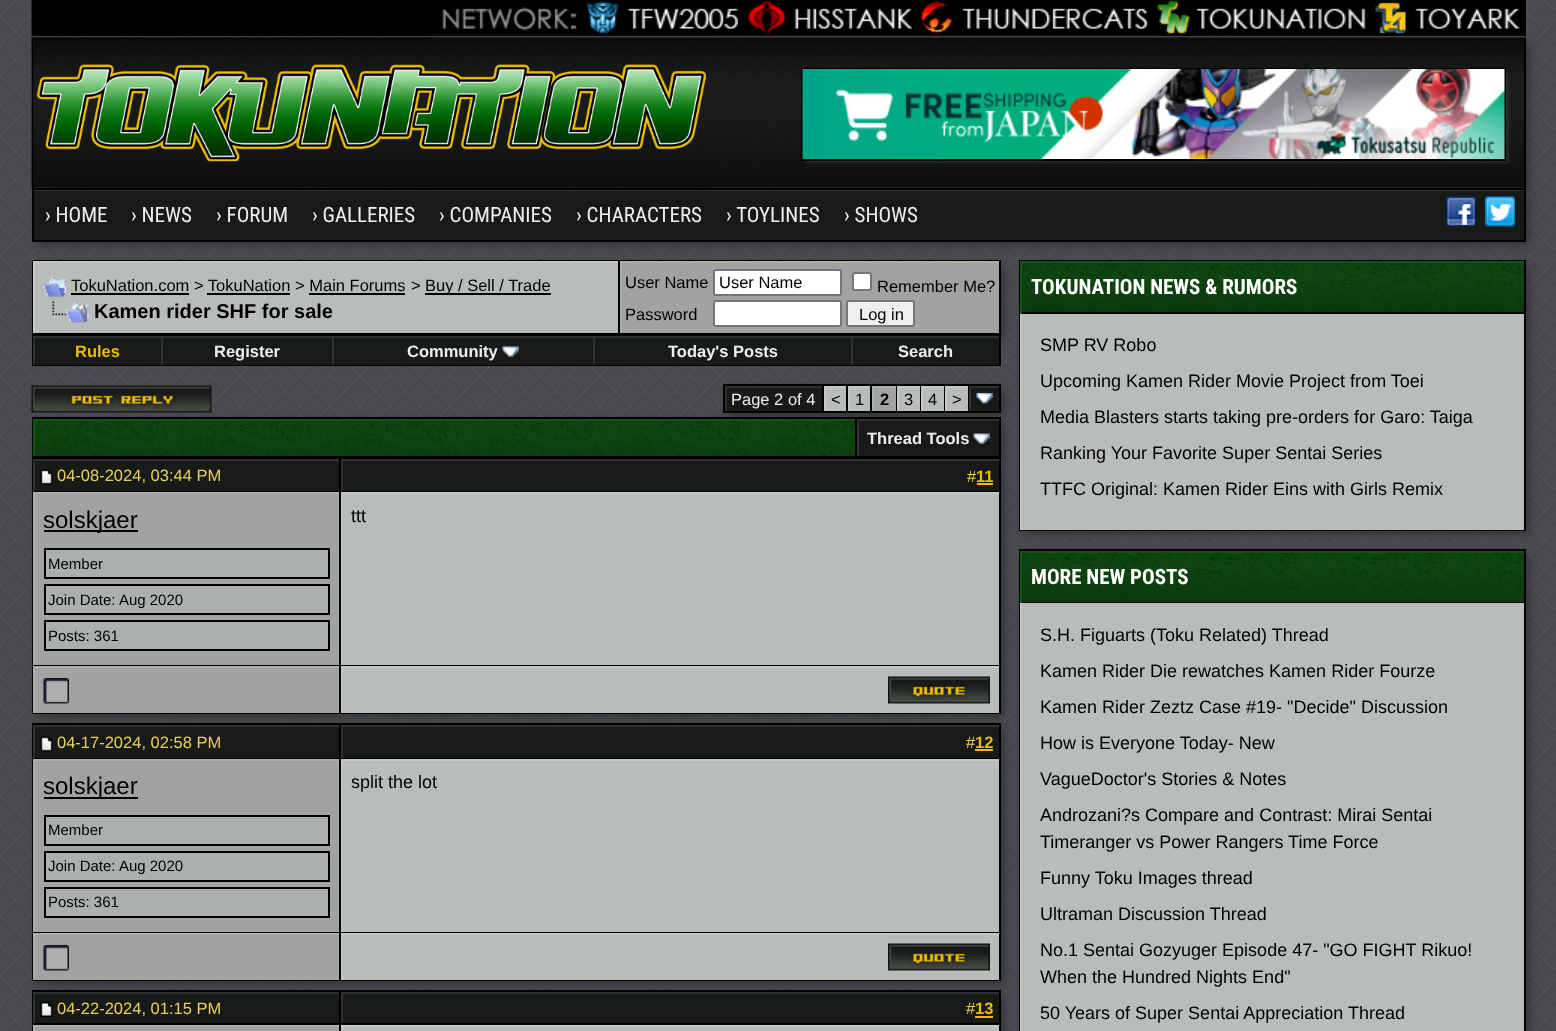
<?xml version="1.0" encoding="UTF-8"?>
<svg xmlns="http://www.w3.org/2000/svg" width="1556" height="1031">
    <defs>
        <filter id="blur1" x="-50%" y="-200%" width="200%" height="500%"><feGaussianBlur stdDeviation="4"/></filter>
        <filter id="blur2" x="-50%" y="-200%" width="200%" height="500%"><feGaussianBlur stdDeviation="2"/></filter>
    </defs>
    <rect width="100%" height="100%" fill="#FFFFFF"/>
    <image x="0" y="0" width="1556" height="1031" href="img_01.png"/>
    <rect x="32" y="0" width="1494" height="38" fill="#000000"/>
    <image x="31" y="0" width="1495" height="38" href="img_02.png"/>
    <image x="433" y="0" width="1093" height="38" href="img_03.png"/>
    <image x="574" y="1" width="164" height="37" href="img_04.png"/>
    <image x="738" y="1" width="174" height="37" href="img_05.png"/>
    <image x="912" y="1" width="243" height="37" href="img_06.png"/>
    <rect x="38" y="44" width="1491" height="147" fill="#323236" filter="url(#blur1)"/>
    <image x="31" y="37" width="1495" height="151" href="img_07.png"/>
    <rect x="1524" y="38" width="2" height="150" fill="#000000"/>
    <rect x="32" y="38" width="2" height="150" fill="#000000"/>
    <image x="33" y="37" width="683" height="151" href="img_08.png"/>
    <rect x="806" y="72" width="702" height="90" fill="#333333" filter="url(#blur2)"/>
    <rect x="802" y="69" width="703" height="91" fill="none" stroke="#000000" stroke-width="2"/>
    <image x="802" y="69" width="703" height="90" href="img_09.png"/>
    <rect x="38" y="194" width="1491" height="51" fill="#323236" filter="url(#blur1)"/>
    <rect x="34" y="191" width="1490" height="49" fill="#181A18"/>
    <rect x="33" y="190" width="1491" height="1" fill="#2F332F"/>
    <rect x="33" y="189" width="1492" height="52" fill="none" stroke="#000000" stroke-width="2"/>
    <text x="45" y="222" font-family="Roboto Condensed" font-size="21" fill="#EEEEEE">› HOME</text>
    <text x="131" y="222" font-family="Roboto Condensed" font-size="21" fill="#EEEEEE">› NEWS</text>
    <text x="216" y="222" font-family="Roboto Condensed" font-size="21" fill="#EEEEEE">› FORUM</text>
    <text x="312" y="222" font-family="Roboto Condensed" font-size="21" fill="#EEEEEE">› GALLERIES</text>
    <text x="439" y="222" font-family="Roboto Condensed" font-size="21" fill="#EEEEEE">› COMPANIES</text>
    <text x="576" y="222" font-family="Roboto Condensed" font-size="21" fill="#EEEEEE">› CHARACTERS</text>
    <text x="726" y="222" font-family="Roboto Condensed" font-size="21" fill="#EEEEEE">› TOYLINES</text>
    <text x="844" y="222" font-family="Roboto Condensed" font-size="21" fill="#EEEEEE">› SHOWS</text>
    <image x="1446" y="196" width="30" height="31" href="img_10.png"/>
    <image x="1485" y="196" width="30" height="31" href="img_11.png"/>
    <rect x="38" y="266" width="966" height="72" fill="#323236" filter="url(#blur1)"/>
    <rect x="32" y="260" width="969" height="106" fill="#000000"/>
    <rect x="35" y="263" width="583" height="70" fill="#B9BDB9"/>
    <rect x="33" y="261" width="585" height="2" fill="#C5C9C6"/>
    <rect x="33" y="261" width="2" height="72" fill="#C5C9C6"/>
    <image x="43" y="277" width="23" height="21" href="img_12.png"/>
    <text x="71" y="291" font-family="Liberation Sans" font-size="16.5" fill="#000000">TokuNation.com &gt; TokuNation</text>
    <rect x="71" y="293" width="118" height="2" fill="#000000"/>
    <rect x="207" y="293" width="83" height="2" fill="#000000"/>
    <text x="295" y="291" font-family="Liberation Sans" font-size="16.5" fill="#000000">&gt; Main Forums</text>
    <rect x="309" y="293" width="96" height="2" fill="#000000"/>
    <text x="411" y="291" font-family="Liberation Sans" font-size="16.5" fill="#000000">&gt;</text>
    <rect x="425" y="293" width="126" height="2" fill="#000000"/>
    <text x="425" y="291" font-family="Liberation Sans" font-size="16.5" fill="#000000">Buy / Sell / Trade</text>
    <image x="52" y="301" width="37" height="22" href="img_13.png"/>
    <text x="94" y="318" font-family="Liberation Sans" font-size="20" font-weight="700" fill="#000000">Kamen rider SHF for sale</text>
    <rect x="622" y="263" width="377" height="70" fill="#A0A3A0"/>
    <rect x="620" y="261" width="379" height="2" fill="#ACB0AD"/>
    <rect x="620" y="261" width="2" height="72" fill="#ACB0AD"/>
    <text x="625" y="288" font-family="Liberation Sans" font-size="16.5" fill="#000000">User Name</text>
    <rect x="714" y="270" width="127" height="25" rx="2" fill="#FFFFFF" stroke="#767676" stroke-width="2"/>
    <text x="719" y="288" font-family="Liberation Sans" font-size="16.5" fill="#000000">User Name</text>
    <rect x="853" y="273" width="18" height="17" rx="2" fill="#FFFFFF" stroke="#767676" stroke-width="2"/>
    <text x="877" y="292" font-family="Liberation Sans" font-size="16.5" fill="#000000">Remember Me?</text>
    <text x="625" y="320" font-family="Liberation Sans" font-size="16.5" fill="#000000">Password</text>
    <rect x="714" y="301" width="127" height="25" rx="2" fill="#FFFFFF" stroke="#767676" stroke-width="2"/>
    <rect x="847" y="301" width="67" height="25" rx="2" fill="#EFEFEF" stroke="#767676" stroke-width="2"/>
    <text x="859" y="320" font-family="Liberation Sans" font-size="16.5" fill="#000000">Log in</text>
    <rect x="35" y="338" width="126" height="27" fill="#181A18"/>
    <rect x="33" y="336" width="966" height="2" fill="#2F332F"/>
    <rect x="33" y="336" width="2" height="29" fill="#2F332F"/>
    <text x="75" y="357" font-family="Liberation Sans" font-size="16.5" font-weight="700" fill="#EBBC00">Rules</text>
    <rect x="163" y="338" width="169" height="27" fill="#181A18"/>
    <rect x="161" y="336" width="2" height="29" fill="#2F332F"/>
    <text x="214" y="357" font-family="Liberation Sans" font-size="16.5" font-weight="700" fill="#EEEEEE">Register</text>
    <rect x="334" y="338" width="259" height="27" fill="#181A18"/>
    <rect x="332" y="336" width="2" height="29" fill="#2F332F"/>
    <text x="407" y="357" font-family="Liberation Sans" font-size="16.5" font-weight="700" fill="#EEEEEE">Community</text>
    <image x="502" y="346" width="17" height="11" href="img_14.png"/>
    <rect x="595" y="338" width="256" height="27" fill="#181A18"/>
    <rect x="593" y="336" width="2" height="29" fill="#2F332F"/>
    <text x="668" y="357" font-family="Liberation Sans" font-size="16.5" font-weight="700" fill="#EEEEEE">Today's Posts</text>
    <rect x="853" y="338" width="146" height="27" fill="#181A18"/>
    <rect x="851" y="336" width="2" height="29" fill="#2F332F"/>
    <text x="898" y="357" font-family="Liberation Sans" font-size="16.5" font-weight="700" fill="#EEEEEE">Search</text>
    <rect x="729" y="390" width="275" height="26" fill="#323236" filter="url(#blur1)"/>
    <rect x="723" y="384" width="278" height="29" fill="#000000"/>
    <rect x="727" y="388" width="95" height="23" fill="#181A18"/>
    <rect x="725" y="386" width="97" height="2" fill="#2F332F"/>
    <rect x="725" y="386" width="2" height="25" fill="#2F332F"/>
    <rect x="826" y="388" width="20" height="23" fill="#B9BDB9"/>
    <rect x="824" y="386" width="22" height="2" fill="#C5C9C6"/>
    <rect x="824" y="386" width="2" height="25" fill="#C5C9C6"/>
    <rect x="850" y="388" width="20" height="23" fill="#B9BDB9"/>
    <rect x="848" y="386" width="22" height="2" fill="#C5C9C6"/>
    <rect x="848" y="386" width="2" height="25" fill="#C5C9C6"/>
    <rect x="874" y="388" width="22" height="23" fill="#A0A3A0"/>
    <rect x="872" y="386" width="24" height="2" fill="#ACB0AD"/>
    <rect x="872" y="386" width="2" height="25" fill="#ACB0AD"/>
    <rect x="899" y="388" width="21" height="23" fill="#B9BDB9"/>
    <rect x="897" y="386" width="23" height="2" fill="#C5C9C6"/>
    <rect x="897" y="386" width="2" height="25" fill="#C5C9C6"/>
    <rect x="923" y="388" width="21" height="23" fill="#B9BDB9"/>
    <rect x="921" y="386" width="23" height="2" fill="#C5C9C6"/>
    <rect x="921" y="386" width="2" height="25" fill="#C5C9C6"/>
    <rect x="947" y="388" width="21" height="23" fill="#B9BDB9"/>
    <rect x="945" y="386" width="23" height="2" fill="#C5C9C6"/>
    <rect x="945" y="386" width="2" height="25" fill="#C5C9C6"/>
    <rect x="971" y="388" width="28" height="23" fill="#181A18"/>
    <rect x="969" y="386" width="30" height="2" fill="#2F332F"/>
    <rect x="969" y="386" width="2" height="25" fill="#2F332F"/>
    <rect x="38" y="423" width="966" height="38" fill="#323236" filter="url(#blur1)"/>
    <image x="31" y="385" width="181" height="28" href="img_15.png"/>
    <text x="731" y="405" font-family="Liberation Sans" font-size="16.5" fill="#EEEEEE">Page 2 of 4</text>
    <text x="831" y="405" font-family="Liberation Sans" font-size="16.5" fill="#000000">&lt;</text>
    <text x="855" y="405" font-family="Liberation Sans" font-size="16.5" fill="#000000">1</text>
    <text x="880" y="405" font-family="Liberation Sans" font-size="16.5" font-weight="700" fill="#000000">2</text>
    <text x="904" y="405" font-family="Liberation Sans" font-size="16.5" fill="#000000">3</text>
    <text x="928" y="405" font-family="Liberation Sans" font-size="16.5" fill="#000000">4</text>
    <text x="952" y="405" font-family="Liberation Sans" font-size="16.5" fill="#000000">&gt;</text>
    <image x="976" y="393" width="17" height="11" href="img_16.png"/>
    <rect x="32" y="417" width="969" height="41" fill="#000000"/>
    <image x="35" y="421" width="820" height="35" href="img_17.png"/>
    <rect x="33" y="419" width="822" height="2" fill="#115414"/>
    <rect x="33" y="419" width="2" height="37" fill="#115414"/>
    <rect x="859" y="421" width="140" height="35" fill="#181A18"/>
    <rect x="857" y="419" width="142" height="2" fill="#2F332F"/>
    <rect x="857" y="419" width="2" height="37" fill="#2F332F"/>
    <text x="867" y="444" font-family="Liberation Sans" font-size="16.5" font-weight="700" fill="#EEEEEE">Thread Tools</text>
    <image x="973" y="433" width="17" height="11" href="img_14.png"/>
    <rect x="38" y="464" width="966" height="253" fill="#323236" filter="url(#blur1)"/>
    <rect x="32" y="458" width="969" height="256" fill="#000000"/>
    <rect x="35" y="461" width="304" height="30" fill="#181A18"/>
    <rect x="33" y="459" width="306" height="2" fill="#2F332F"/>
    <rect x="33" y="459" width="2" height="32" fill="#2F332F"/>
    <image x="40" y="469" width="13" height="16" href="img_18.png"/>
    <text x="57" y="481" font-family="Liberation Sans" font-size="16.5" fill="#EBCE5B">04-08-2024, 03:44 PM</text>
    <rect x="343" y="461" width="656" height="30" fill="#181A18"/>
    <rect x="341" y="459" width="658" height="2" fill="#2F332F"/>
    <rect x="341" y="459" width="2" height="32" fill="#2F332F"/>
    <text x="967" y="482" font-family="Liberation Sans" font-size="16.5" fill="#EBCE5B">#</text>
    <text x="976" y="482" font-family="Liberation Sans" font-size="16.5" font-weight="700" fill="#EBBC00">11</text>
    <rect x="977" y="483" width="16" height="2" fill="#EBBC00"/>
    <rect x="35" y="494" width="304" height="171" fill="#A0A3A0"/>
    <rect x="33" y="492" width="306" height="2" fill="#ACB0AD"/>
    <rect x="33" y="492" width="2" height="173" fill="#ACB0AD"/>
    <rect x="44" y="530" width="94" height="2" fill="#000000"/>
    <text x="43" y="528" font-family="Liberation Sans" font-size="24" fill="#000000">solskjaer</text>
    <rect x="45" y="549" width="284" height="29" fill="#ACB0AC" stroke="#000000" stroke-width="2"/>
    <text x="48" y="569" font-family="Liberation Sans" font-size="15" fill="#000000">Member</text>
    <rect x="45" y="585" width="284" height="29" fill="#ACB0AC" stroke="#000000" stroke-width="2"/>
    <text x="48" y="605" font-family="Liberation Sans" font-size="15" fill="#000000">Join Date: Aug 2020</text>
    <rect x="45" y="621" width="284" height="29" fill="#ACB0AC" stroke="#000000" stroke-width="2"/>
    <text x="48" y="641" font-family="Liberation Sans" font-size="15" fill="#000000">Posts: 361</text>
    <rect x="343" y="494" width="656" height="171" fill="#B9BDB9"/>
    <rect x="341" y="492" width="658" height="2" fill="#C5C9C6"/>
    <rect x="341" y="492" width="2" height="173" fill="#C5C9C6"/>
    <text x="351" y="522" font-family="Liberation Sans" font-size="18" fill="#000000">ttt</text>
    <rect x="35" y="668" width="304" height="45" fill="#A0A3A0"/>
    <rect x="33" y="666" width="306" height="2" fill="#ACB0AD"/>
    <rect x="33" y="666" width="2" height="47" fill="#ACB0AD"/>
    <image x="43" y="678" width="26" height="26" href="img_19.png"/>
    <rect x="343" y="668" width="656" height="45" fill="#B9BDB9"/>
    <rect x="341" y="666" width="658" height="2" fill="#C5C9C6"/>
    <rect x="341" y="666" width="2" height="47" fill="#C5C9C6"/>
    <image x="888" y="676" width="102" height="28" href="img_20.png"/>
    <rect x="38" y="729" width="966" height="255" fill="#323236" filter="url(#blur1)"/>
    <rect x="32" y="723" width="969" height="258" fill="#000000"/>
    <rect x="35" y="727" width="304" height="31" fill="#181A18"/>
    <rect x="33" y="725" width="306" height="2" fill="#2F332F"/>
    <rect x="33" y="725" width="2" height="33" fill="#2F332F"/>
    <image x="40" y="736" width="13" height="16" href="img_18.png"/>
    <text x="57" y="748" font-family="Liberation Sans" font-size="16.5" fill="#EBCE5B">04-17-2024, 02:58 PM</text>
    <rect x="343" y="727" width="656" height="31" fill="#181A18"/>
    <rect x="341" y="725" width="658" height="2" fill="#2F332F"/>
    <rect x="341" y="725" width="2" height="33" fill="#2F332F"/>
    <text x="966" y="748" font-family="Liberation Sans" font-size="16.5" fill="#EBCE5B">#</text>
    <text x="975" y="748" font-family="Liberation Sans" font-size="16.5" font-weight="700" fill="#EBBC00">12</text>
    <rect x="975" y="749" width="18" height="2" fill="#EBBC00"/>
    <rect x="35" y="761" width="304" height="171" fill="#A0A3A0"/>
    <rect x="33" y="759" width="306" height="2" fill="#ACB0AD"/>
    <rect x="33" y="759" width="2" height="173" fill="#ACB0AD"/>
    <rect x="44" y="797" width="94" height="2" fill="#000000"/>
    <text x="43" y="794" font-family="Liberation Sans" font-size="24" fill="#000000">solskjaer</text>
    <rect x="45" y="816" width="284" height="29" fill="#ACB0AC" stroke="#000000" stroke-width="2"/>
    <text x="48" y="835" font-family="Liberation Sans" font-size="15" fill="#000000">Member</text>
    <rect x="45" y="852" width="284" height="29" fill="#ACB0AC" stroke="#000000" stroke-width="2"/>
    <text x="48" y="871" font-family="Liberation Sans" font-size="15" fill="#000000">Join Date: Aug 2020</text>
    <rect x="45" y="888" width="284" height="29" fill="#ACB0AC" stroke="#000000" stroke-width="2"/>
    <text x="48" y="907" font-family="Liberation Sans" font-size="15" fill="#000000">Posts: 361</text>
    <rect x="343" y="761" width="656" height="171" fill="#B9BDB9"/>
    <rect x="341" y="759" width="658" height="2" fill="#C5C9C6"/>
    <rect x="341" y="759" width="2" height="173" fill="#C5C9C6"/>
    <text x="351" y="788" font-family="Liberation Sans" font-size="18" fill="#000000">split the lot</text>
    <rect x="35" y="935" width="304" height="45" fill="#A0A3A0"/>
    <rect x="33" y="933" width="306" height="2" fill="#ACB0AD"/>
    <rect x="33" y="933" width="2" height="47" fill="#ACB0AD"/>
    <image x="43" y="945" width="26" height="26" href="img_19.png"/>
    <rect x="343" y="935" width="656" height="45" fill="#B9BDB9"/>
    <rect x="341" y="933" width="658" height="2" fill="#C5C9C6"/>
    <rect x="341" y="933" width="2" height="47" fill="#C5C9C6"/>
    <image x="888" y="943" width="102" height="28" href="img_20.png"/>
    <rect x="38" y="996" width="966" height="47" fill="#323236" filter="url(#blur1)"/>
    <rect x="32" y="990" width="969" height="41" fill="#000000"/>
    <rect x="35" y="994" width="304" height="29" fill="#181A18"/>
    <rect x="33" y="992" width="306" height="2" fill="#2F332F"/>
    <rect x="33" y="992" width="2" height="31" fill="#2F332F"/>
    <image x="40" y="1002" width="13" height="15" href="img_21.png"/>
    <text x="57" y="1014" font-family="Liberation Sans" font-size="16.5" fill="#EBCE5B">04-22-2024, 01:15 PM</text>
    <rect x="343" y="994" width="656" height="29" fill="#181A18"/>
    <rect x="341" y="992" width="658" height="2" fill="#2F332F"/>
    <rect x="341" y="992" width="2" height="31" fill="#2F332F"/>
    <text x="966" y="1014" font-family="Liberation Sans" font-size="16.5" fill="#EBCE5B">#</text>
    <text x="975" y="1014" font-family="Liberation Sans" font-size="16.5" font-weight="700" fill="#EBBC00">13</text>
    <rect x="975" y="1016" width="18" height="2" fill="#EBBC00"/>
    <rect x="33" y="1027" width="306" height="4" fill="#A0A3A0"/>
    <rect x="33" y="1025" width="306" height="2" fill="#ACB0AD"/>
    <rect x="33" y="1025" width="2" height="6" fill="#ACB0AD"/>
    <rect x="341" y="1027" width="658" height="4" fill="#B9BDB9"/>
    <rect x="341" y="1025" width="658" height="2" fill="#C5C9C6"/>
    <rect x="341" y="1025" width="2" height="6" fill="#C5C9C6"/>
    <rect x="1025" y="266" width="504" height="268" fill="#323236" filter="url(#blur1)"/>
    <rect x="1019" y="260" width="507" height="271" fill="#000000"/>
    <rect x="1022" y="310" width="502" height="2" fill="#0B370D"/>
    <image x="1022" y="263" width="502" height="47" href="img_22.png"/>
    <rect x="1020" y="261" width="504" height="2" fill="#115414"/>
    <rect x="1020" y="261" width="2" height="53" fill="#115414"/>
    <text x="1031" y="294" font-family="Roboto Condensed" font-size="21" font-weight="700" fill="#FFFFFF">TOKUNATION NEWS &amp; RUMORS</text>
    <rect x="1022" y="314" width="502" height="216" fill="#B9BDB9"/>
    <rect x="1020" y="314" width="2" height="216" fill="#C5C9C6"/>
    <text x="1040" y="351" font-family="Liberation Sans" font-size="18" fill="#000000">SMP RV Robo</text>
    <text x="1040" y="387" font-family="Liberation Sans" font-size="18" fill="#000000">Upcoming Kamen Rider Movie Project from Toei</text>
    <text x="1040" y="423" font-family="Liberation Sans" font-size="18" fill="#000000">Media Blasters starts taking pre-orders for Garo: Taiga</text>
    <text x="1040" y="459" font-family="Liberation Sans" font-size="18" fill="#000000">Ranking Your Favorite Super Sentai Series</text>
    <text x="1040" y="495" font-family="Liberation Sans" font-size="18" fill="#000000">TTFC Original: Kamen Rider Eins with Girls Remix</text>
    <rect x="1025" y="555" width="504" height="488" fill="#323236" filter="url(#blur1)"/>
    <rect x="1019" y="549" width="507" height="482" fill="#000000"/>
    <rect x="1022" y="600" width="502" height="2" fill="#0B370D"/>
    <image x="1022" y="553" width="502" height="47" href="img_23.png"/>
    <rect x="1020" y="551" width="504" height="2" fill="#115414"/>
    <rect x="1020" y="551" width="2" height="52" fill="#115414"/>
    <text x="1031" y="584" font-family="Roboto Condensed" font-size="21" font-weight="700" fill="#FFFFFF">MORE NEW POSTS</text>
    <rect x="1022" y="603" width="502" height="423" fill="#B9BDB9"/>
    <rect x="1020" y="603" width="2" height="423" fill="#C5C9C6"/>
    <text x="1040" y="641" font-family="Liberation Sans" font-size="18" fill="#000000">S.H. Figuarts (Toku Related) Thread</text>
    <text x="1040" y="677" font-family="Liberation Sans" font-size="18" fill="#000000">Kamen Rider Die rewatches Kamen Rider Fourze</text>
    <text x="1040" y="713" font-family="Liberation Sans" font-size="18" fill="#000000">Kamen Rider Zeztz Case #19- "Decide" Discussion</text>
    <text x="1040" y="749" font-family="Liberation Sans" font-size="18" fill="#000000">How is Everyone Today- New</text>
    <text x="1040" y="785" font-family="Liberation Sans" font-size="18" fill="#000000">VagueDoctor's Stories &amp; Notes</text>
    <text font-family="Liberation Sans" font-size="18" fill="#000000">
        <tspan x="1040" y="821">Androzani?s Compare and Contrast: Mirai Sentai</tspan>
        <tspan x="1040" y="848">Timeranger vs Power Rangers Time Force</tspan>
    </text>
    <text x="1040" y="884" font-family="Liberation Sans" font-size="18" fill="#000000">Funny Toku Images thread</text>
    <text x="1040" y="920" font-family="Liberation Sans" font-size="18" fill="#000000">Ultraman Discussion Thread</text>
    <text font-family="Liberation Sans" font-size="18" fill="#000000">
        <tspan x="1040" y="956">No.1 Sentai Gozyuger Episode 47- "GO FIGHT Rikuo!</tspan>
        <tspan x="1040" y="983">When the Hundred Nights End"</tspan>
    </text>
    <text x="1040" y="1019" font-family="Liberation Sans" font-size="18" fill="#000000">50 Years of Super Sentai Appreciation Thread</text>
    <rect x="1020" y="1026" width="504" height="5" fill="#B9BDB9"/>
    <rect x="1020" y="1026" width="2" height="5" fill="#C5C9C6"/>
</svg>
